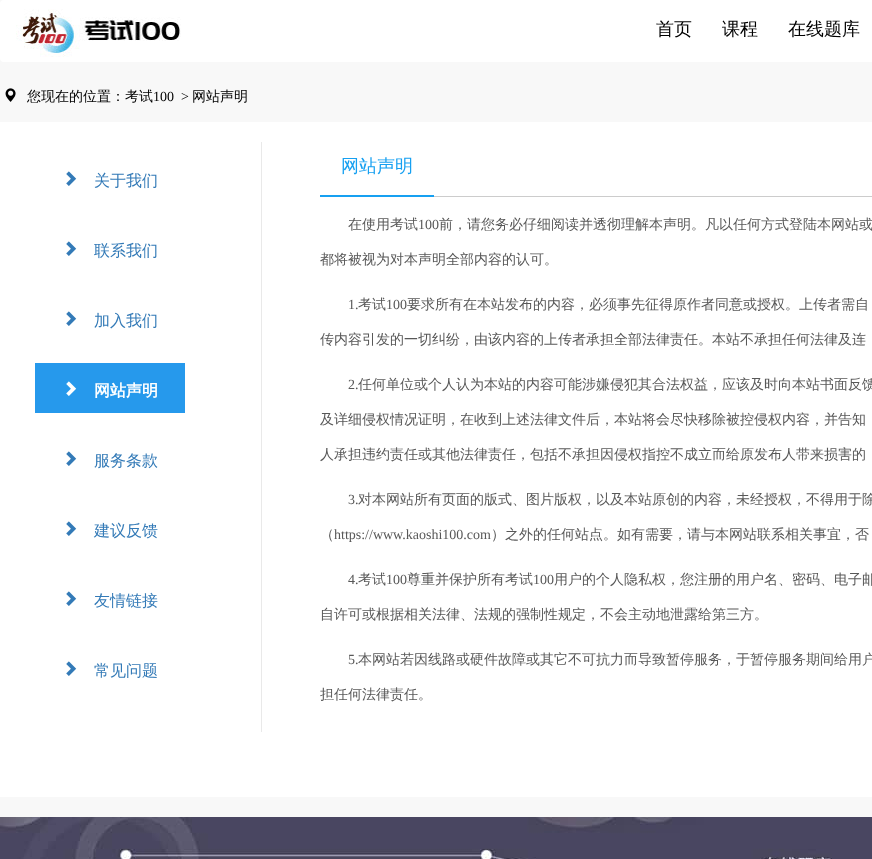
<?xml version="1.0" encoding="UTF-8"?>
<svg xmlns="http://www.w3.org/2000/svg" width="872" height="859">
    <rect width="100%" height="100%" fill="#F8F8F8"/>
    <rect x="0" y="0" width="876" height="62" rx="4" fill="#FFFFFF"/>
    <image x="16" y="9" width="165" height="48" href="img_01.png"/>
    <text x="656" y="35" font-family="WenQuanYi Zen Hei" font-size="18" font-weight="500" fill="#000000">首页</text>
    <text x="722" y="35" font-family="WenQuanYi Zen Hei" font-size="18" font-weight="500" fill="#000000">课程</text>
    <text x="788" y="35" font-family="WenQuanYi Zen Hei" font-size="18" font-weight="500" fill="#000000">在线题库</text>
    <image x="5" y="88" width="11" height="14" href="img_02.png"/>
    <text x="27" y="101" font-family="WenQuanYi Zen Hei" font-size="14" font-weight="500" fill="#000000">您现在的位置：考试</text>
    <text x="153" y="101" font-family="Liberation Serif" font-size="14" fill="#000000">100</text>
    <text x="181" y="101" font-family="Liberation Serif" font-size="14" fill="#000000">&gt;</text>
    <text x="192" y="101" font-family="WenQuanYi Zen Hei" font-size="14" font-weight="500" fill="#000000">网站声明</text>
    <rect x="0" y="122" width="872" height="675" fill="#FFFFFF"/>
    <rect x="261" y="142" width="1" height="590" fill="#E9E9E9"/>
    <image x="66" y="171" width="11" height="15" href="img_03.png"/>
    <text x="94" y="186" font-family="WenQuanYi Zen Hei" font-size="16" font-weight="500" fill="#337AB7">关于我们</text>
    <image x="66" y="241" width="11" height="15" href="img_03.png"/>
    <text x="94" y="256" font-family="WenQuanYi Zen Hei" font-size="16" font-weight="500" fill="#337AB7">联系我们</text>
    <image x="66" y="311" width="11" height="15" href="img_03.png"/>
    <text x="94" y="326" font-family="WenQuanYi Zen Hei" font-size="16" font-weight="500" fill="#337AB7">加入我们</text>
    <rect x="35" y="363" width="150" height="50" fill="#2699EC"/>
    <image x="66" y="381" width="11" height="15" href="img_04.png"/>
    <text x="94" y="396" font-family="WenQuanYi Zen Hei" font-size="16" font-weight="700" fill="#FFFFFF">网站声明</text>
    <image x="66" y="451" width="11" height="15" href="img_03.png"/>
    <text x="94" y="466" font-family="WenQuanYi Zen Hei" font-size="16" font-weight="500" fill="#337AB7">服务条款</text>
    <image x="66" y="521" width="11" height="15" href="img_03.png"/>
    <text x="94" y="536" font-family="WenQuanYi Zen Hei" font-size="16" font-weight="500" fill="#337AB7">建议反馈</text>
    <image x="66" y="591" width="11" height="15" href="img_03.png"/>
    <text x="94" y="606" font-family="WenQuanYi Zen Hei" font-size="16" font-weight="500" fill="#337AB7">友情链接</text>
    <image x="66" y="661" width="11" height="15" href="img_03.png"/>
    <text x="94" y="676" font-family="WenQuanYi Zen Hei" font-size="16" font-weight="500" fill="#337AB7">常见问题</text>
    <rect x="434" y="196" width="438" height="1" fill="#CCCCCC"/>
    <rect x="320" y="195" width="114" height="2" fill="#16A0F1"/>
    <text x="341" y="172" font-family="WenQuanYi Zen Hei" font-size="18" font-weight="500" fill="#16A0F1">网站声明</text>
    <text x="348" y="229" font-family="WenQuanYi Zen Hei" font-size="14" font-weight="500" fill="#585858">在使用考试</text>
    <text x="418" y="229" font-family="Liberation Serif" font-size="14" fill="#585858">100</text>
    <text x="439" y="229" font-family="WenQuanYi Zen Hei" font-size="14" font-weight="500" fill="#585858">前，请您务必仔细阅读并透彻理解本声明。凡以任何方式登陆本网站或</text>
    <text x="320" y="264" font-family="WenQuanYi Zen Hei" font-size="14" font-weight="500" fill="#585858">都将被视为对本声明全部内容的认可。</text>
    <text x="348" y="309" font-family="Liberation Serif" font-size="14" fill="#585858">1.</text>
    <text x="358" y="309" font-family="WenQuanYi Zen Hei" font-size="14" font-weight="500" fill="#585858">考试</text>
    <text x="386" y="309" font-family="Liberation Serif" font-size="14" fill="#585858">100</text>
    <text x="407" y="309" font-family="WenQuanYi Zen Hei" font-size="14" font-weight="500" fill="#585858">要求所有在本站发布的内容，必须事先征得原作者同意或授权。上传者需自</text>
    <text x="320" y="344" font-family="WenQuanYi Zen Hei" font-size="14" font-weight="500" fill="#585858">传内容引发的一切纠纷，由该内容的上传者承担全部法律责任。本站不承担任何法律及连</text>
    <text x="348" y="389" font-family="Liberation Serif" font-size="14" fill="#585858">2.</text>
    <text x="358" y="389" font-family="WenQuanYi Zen Hei" font-size="14" font-weight="500" fill="#585858">任何单位或个人认为本站的内容可能涉嫌侵犯其合法权益，应该及时向本站书面反馈</text>
    <text x="320" y="424" font-family="WenQuanYi Zen Hei" font-size="14" font-weight="500" fill="#585858">及详细侵权情况证明，在收到上述法律文件后，本站将会尽快移除被控侵权内容，并告知</text>
    <text x="320" y="459" font-family="WenQuanYi Zen Hei" font-size="14" font-weight="500" fill="#585858">人承担违约责任或其他法律责任，包括不承担因侵权指控不成立而给原发布人带来损害的</text>
    <text x="348" y="504" font-family="Liberation Serif" font-size="14" fill="#585858">3.</text>
    <text x="358" y="504" font-family="WenQuanYi Zen Hei" font-size="14" font-weight="500" fill="#585858">对本网站所有页面的版式、图片版权，以及本站原创的内容，未经授权，不得用于除</text>
    <text x="320" y="539" font-family="WenQuanYi Zen Hei" font-size="14" font-weight="500" fill="#585858">（</text>
    <text x="334" y="539" font-family="Liberation Serif" font-size="14" fill="#585858">https://www.kaoshi100.com</text>
    <text x="491" y="539" font-family="WenQuanYi Zen Hei" font-size="14" font-weight="500" fill="#585858">）之外的任何站点。如有需要，请与本网站联系相关事宜，否</text>
    <text x="348" y="584" font-family="Liberation Serif" font-size="14" fill="#585858">4.</text>
    <text x="358" y="584" font-family="WenQuanYi Zen Hei" font-size="14" font-weight="500" fill="#585858">考试</text>
    <text x="386" y="584" font-family="Liberation Serif" font-size="14" fill="#585858">100</text>
    <text x="407" y="584" font-family="WenQuanYi Zen Hei" font-size="14" font-weight="500" fill="#585858">尊重并保护所有考试</text>
    <text x="533" y="584" font-family="Liberation Serif" font-size="14" fill="#585858">100</text>
    <text x="554" y="584" font-family="WenQuanYi Zen Hei" font-size="14" font-weight="500" fill="#585858">用户的个人隐私权，您注册的用户名、密码、电子邮</text>
    <text x="320" y="619" font-family="WenQuanYi Zen Hei" font-size="14" font-weight="500" fill="#585858">自许可或根据相关法律、法规的强制性规定，不会主动地泄露给第三方。</text>
    <text x="348" y="664" font-family="Liberation Serif" font-size="14" fill="#585858">5.</text>
    <text x="358" y="664" font-family="WenQuanYi Zen Hei" font-size="14" font-weight="500" fill="#585858">本网站若因线路或硬件故障或其它不可抗力而导致暂停服务，于暂停服务期间给用户</text>
    <text x="320" y="699" font-family="WenQuanYi Zen Hei" font-size="14" font-weight="500" fill="#585858">担任何法律责任。</text>
    <image x="0" y="817" width="872" height="42" href="img_05.png"/>
</svg>
